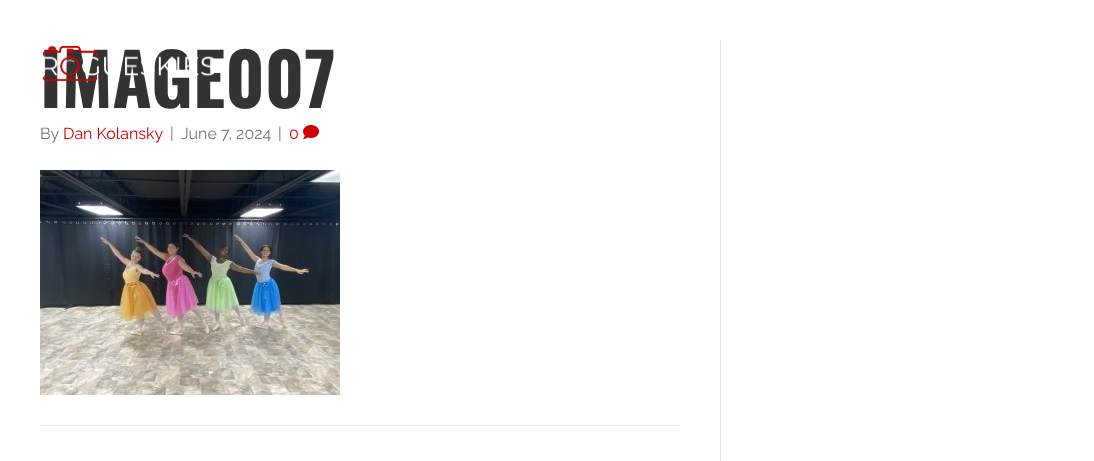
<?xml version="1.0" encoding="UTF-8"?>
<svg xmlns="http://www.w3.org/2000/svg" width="1094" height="461">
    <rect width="100%" height="100%" fill="#FFFFFF"/>
    <text x="40" y="108" font-family="Oswald" font-size="72" font-weight="700" fill="#333333">IMAGE007</text>
    <image x="42" y="46" width="173" height="36" href="img_01.png"/>
    <rect x="720" y="40" width="1" height="421" fill="#E6E6E6"/>
    <text x="40" y="139" font-family="Raleway" font-size="16" fill="#757575">By</text>
    <text x="63" y="139" font-family="Raleway" font-size="16" fill="#D10000">Dan Kolansky</text>
    <text x="170" y="139" font-family="Raleway" font-size="16" fill="#757575">|</text>
    <text x="181" y="139" font-family="Raleway" font-size="16" fill="#757575">June 7, 2024</text>
    <text x="278" y="139" font-family="Raleway" font-size="16" fill="#757575">|</text>
    <text x="289" y="139" font-family="Raleway" font-size="16" fill="#D10000">0</text>
    <image x="303" y="125" width="16" height="14" href="img_02.png"/>
    <image x="40" y="170" width="300" height="225" href="img_03.png"/>
    <rect x="40" y="425" width="640" height="1" fill="#E6E6E6"/>
</svg>
